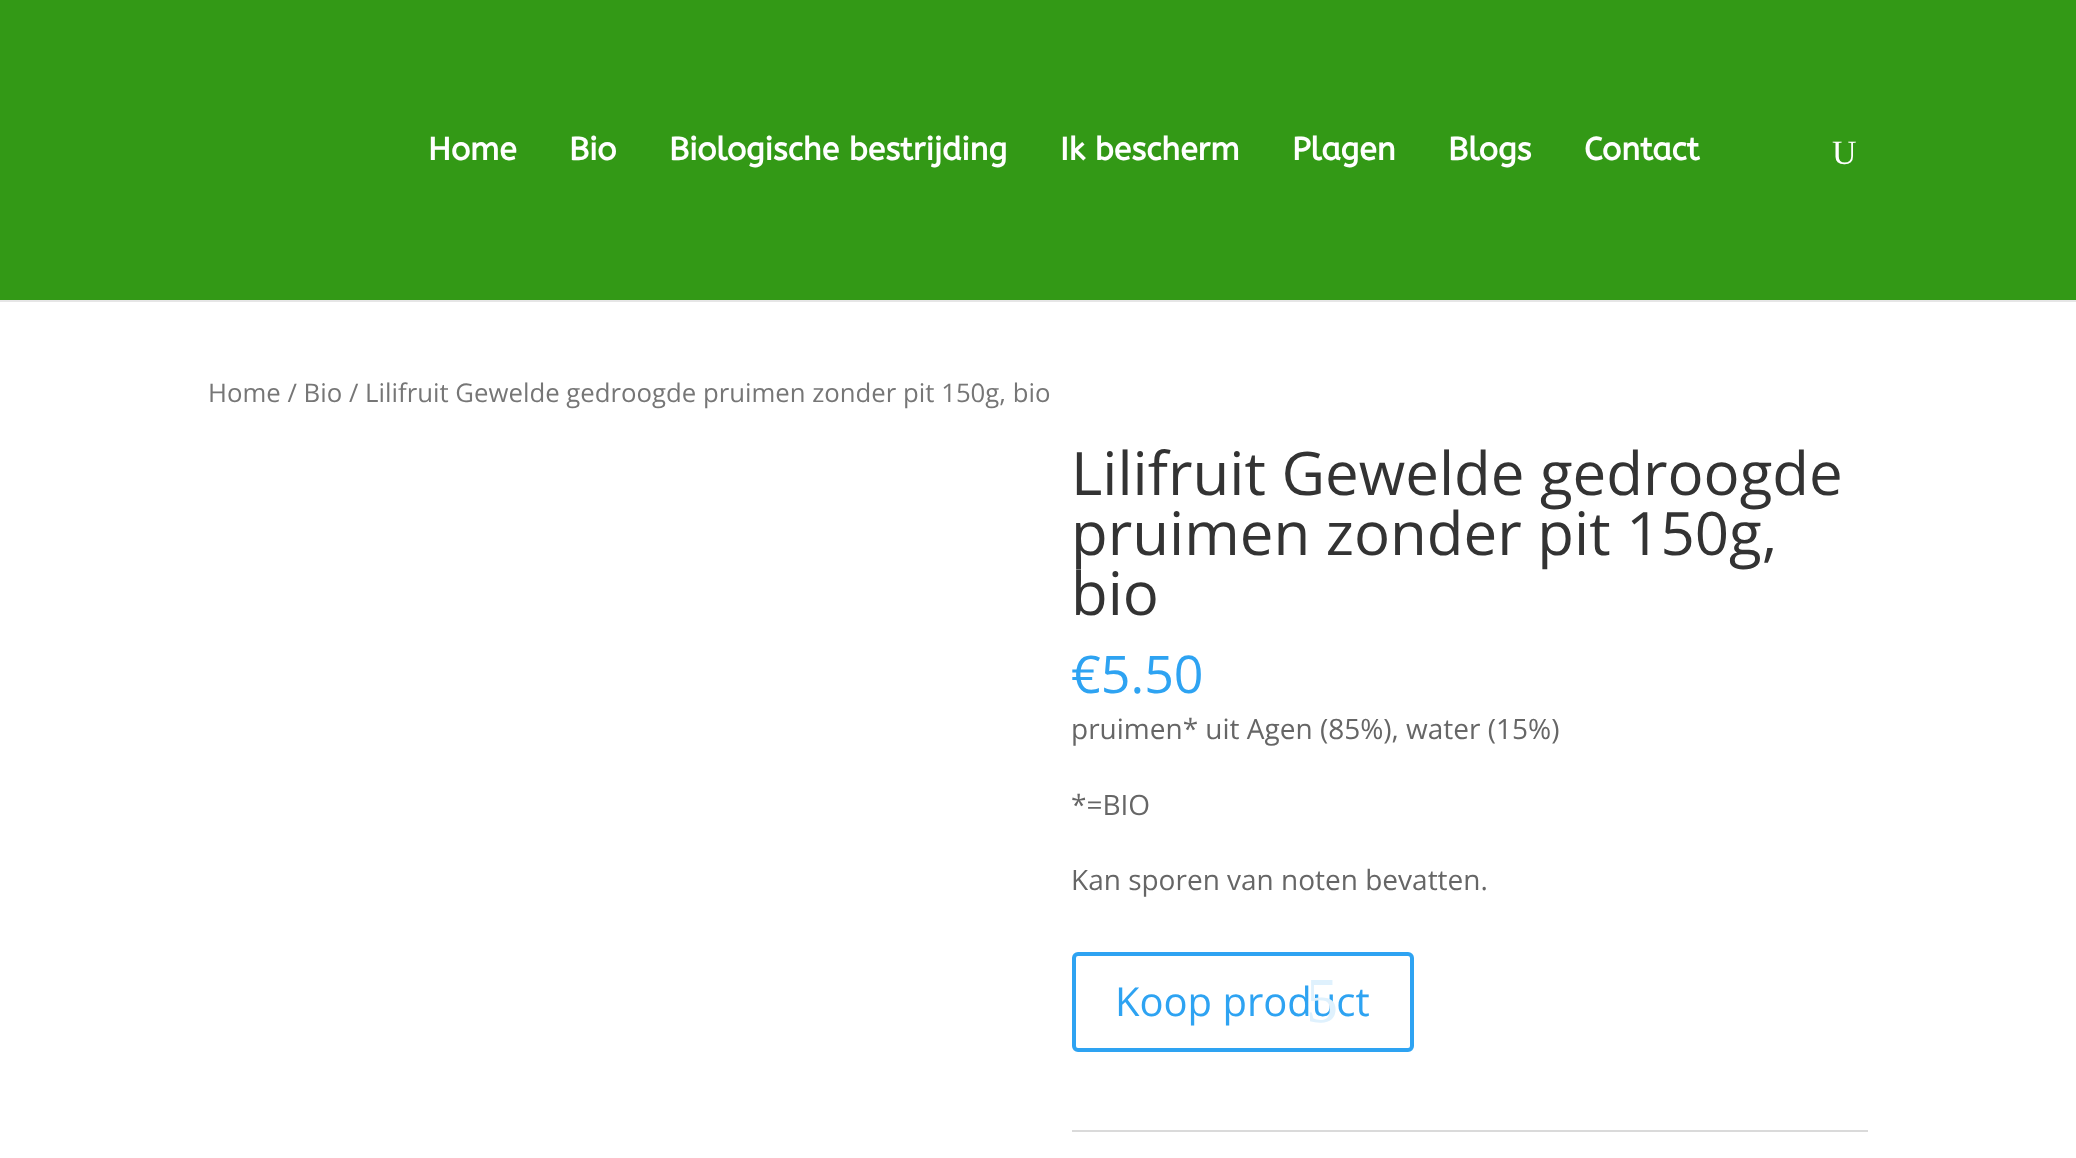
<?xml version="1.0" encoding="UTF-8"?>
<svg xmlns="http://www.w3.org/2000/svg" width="2076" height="1158">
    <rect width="100%" height="100%" fill="#FFFFFF"/>
    <rect x="0" y="300" width="2076" height="2" fill="#E6E6E6"/>
    <rect x="0" y="0" width="2076" height="300" fill="#339916"/>
    <text x="428" y="160" font-family="ABeeZee" font-size="32" font-weight="700" fill="#FFFFFF">Home</text>
    <text x="569" y="160" font-family="ABeeZee" font-size="32" font-weight="700" fill="#FFFFFF">Bio</text>
    <text x="669" y="160" font-family="ABeeZee" font-size="32" font-weight="700" fill="#FFFFFF">Biologische bestrijding</text>
    <text x="1060" y="160" font-family="ABeeZee" font-size="32" font-weight="700" fill="#FFFFFF">Ik bescherm</text>
    <text x="1292" y="160" font-family="ABeeZee" font-size="32" font-weight="700" fill="#FFFFFF">Plagen</text>
    <text x="1448" y="160" font-family="ABeeZee" font-size="32" font-weight="700" fill="#FFFFFF">Blogs</text>
    <text x="1584" y="160" font-family="ABeeZee" font-size="32" font-weight="700" fill="#FFFFFF">Contact</text>
    <text x="1832" y="164" font-family="Liberation Serif" font-size="34" fill="#FFFFFF">U</text>
    <text x="208" y="402" font-family="Open Sans" font-size="25.75" fill="#767676">Home / Bio / Lilifruit Gewelde gedroogde pruimen zonder pit 150g, bio</text>
    <text font-family="Open Sans" font-size="60" fill="#333333">
        <tspan x="1071" y="495">Lilifruit Gewelde gedroogde</tspan>
        <tspan x="1071" y="555">pruimen zonder pit 150g,</tspan>
        <tspan x="1071" y="615">bio</tspan>
    </text>
    <text x="1071" y="693" font-family="Open Sans" font-size="52" fill="#2EA3F2">€5.50</text>
    <text x="1071" y="739" font-family="Open Sans" font-size="28" fill="#666666">pruimen* uit Agen (85%), water (15%)</text>
    <text x="1071" y="815" font-family="Open Sans" font-size="28" fill="#666666">*=BIO</text>
    <text x="1071" y="890" font-family="Open Sans" font-size="28" fill="#666666">Kan sporen van noten bevatten.</text>
    <rect x="1074" y="954" width="338" height="96" rx="4" fill="none" stroke="#2EA3F2" stroke-width="4"/>
    <text x="1115" y="1016" font-family="Open Sans" font-size="40" fill="#2EA3F2">Koop product</text>
    <text x="1306" y="1022" font-family="Liberation Serif" font-size="64" fill="#DFF1FD">5</text>
    <rect x="1072" y="1130" width="796" height="2" fill="#DADADA"/>
</svg>
